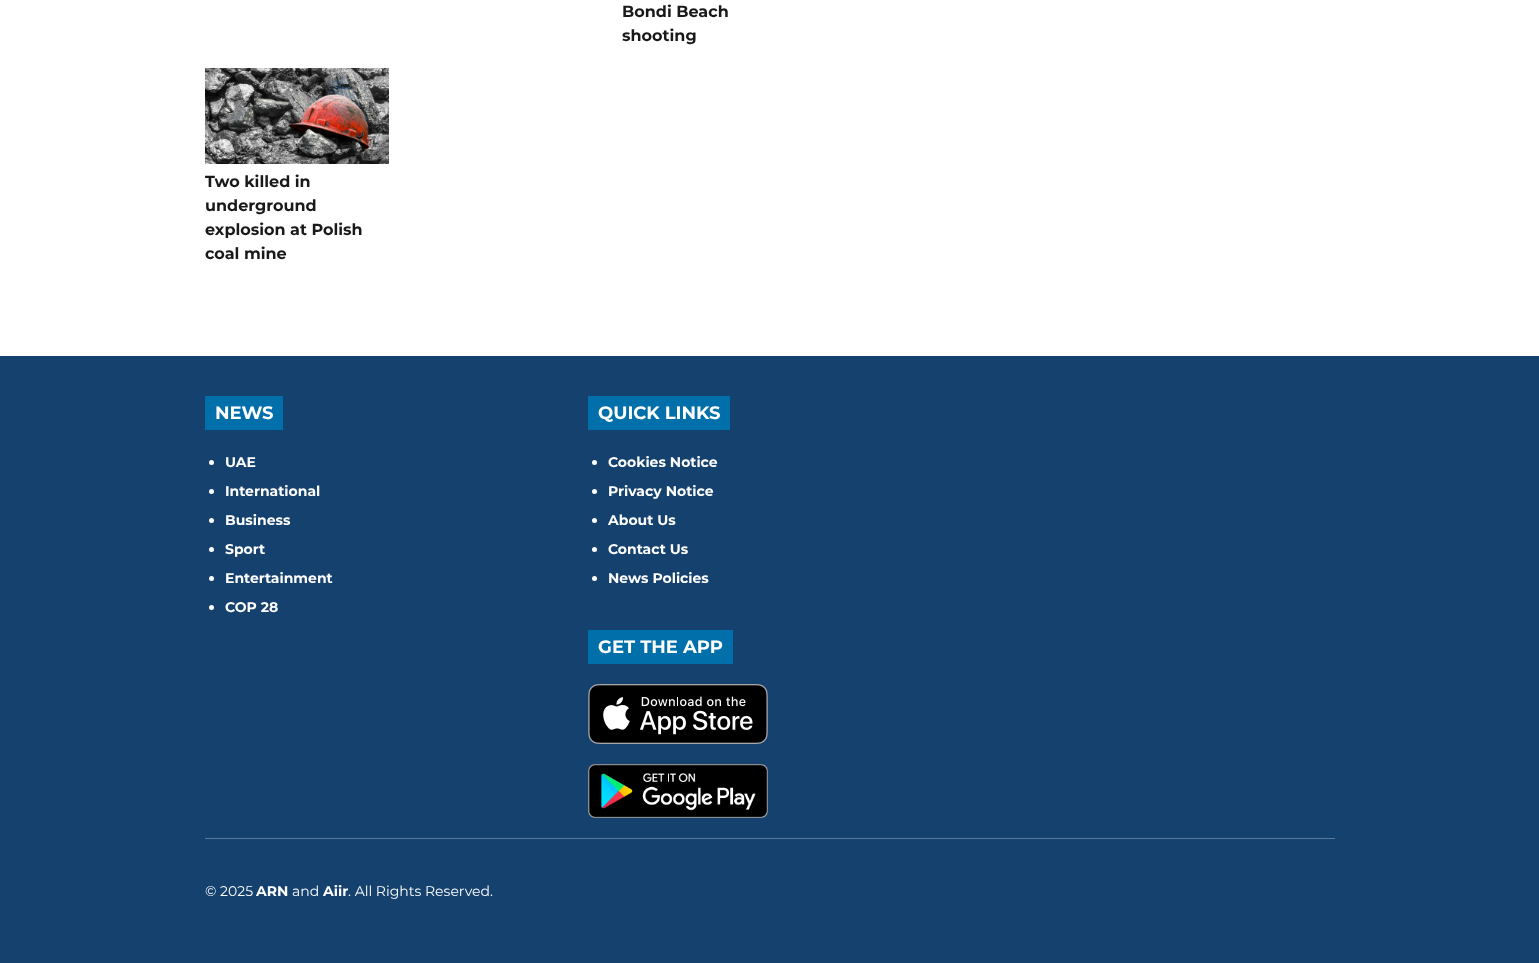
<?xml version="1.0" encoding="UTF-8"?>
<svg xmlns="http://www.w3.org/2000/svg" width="1539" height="963">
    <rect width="100%" height="100%" fill="#FFFFFF"/>
    <text font-family="Montserrat" font-size="16" font-weight="700" fill="#191919">
        <tspan x="622" y="17">Bondi Beach</tspan>
        <tspan x="622" y="41">shooting</tspan>
    </text>
    <image x="205" y="68" width="184" height="96" href="img_01.png"/>
    <text font-family="Montserrat" font-size="16" font-weight="700" fill="#191919">
        <tspan x="205" y="187">Two killed in</tspan>
        <tspan x="205" y="211">underground</tspan>
        <tspan x="205" y="235">explosion at Polish</tspan>
        <tspan x="205" y="259">coal mine</tspan>
    </text>
    <rect x="0" y="356" width="1539" height="607" fill="#15416E"/>
    <rect x="205" y="396" width="78" height="34" fill="#0170AA"/>
    <text x="215" y="419" font-family="Montserrat" font-size="18" font-weight="700" fill="#FFFFFF">NEWS</text>
    <circle cx="211.5" cy="462.5" r="2.5" fill="#FFFFFF"/>
    <text x="225" y="467" font-family="Montserrat" font-size="14" font-weight="700" fill="#FFFFFF">UAE</text>
    <circle cx="211.5" cy="491.5" r="2.5" fill="#FFFFFF"/>
    <text x="225" y="496" font-family="Montserrat" font-size="14" font-weight="700" fill="#FFFFFF">International</text>
    <circle cx="211.5" cy="520.5" r="2.5" fill="#FFFFFF"/>
    <text x="225" y="525" font-family="Montserrat" font-size="14" font-weight="700" fill="#FFFFFF">Business</text>
    <circle cx="211.5" cy="549.5" r="2.5" fill="#FFFFFF"/>
    <text x="225" y="554" font-family="Montserrat" font-size="14" font-weight="700" fill="#FFFFFF">Sport</text>
    <circle cx="211.5" cy="578.5" r="2.5" fill="#FFFFFF"/>
    <text x="225" y="583" font-family="Montserrat" font-size="14" font-weight="700" fill="#FFFFFF">Entertainment</text>
    <circle cx="211.5" cy="607.5" r="2.5" fill="#FFFFFF"/>
    <text x="225" y="612" font-family="Montserrat" font-size="14" font-weight="700" fill="#FFFFFF">COP 28</text>
    <rect x="588" y="396" width="142" height="34" fill="#0170AA"/>
    <text x="598" y="419" font-family="Montserrat" font-size="18" font-weight="700" fill="#FFFFFF">QUICK LINKS</text>
    <circle cx="594.5" cy="462.5" r="2.5" fill="#FFFFFF"/>
    <text x="608" y="467" font-family="Montserrat" font-size="14" font-weight="700" fill="#FFFFFF">Cookies Notice</text>
    <circle cx="594.5" cy="491.5" r="2.5" fill="#FFFFFF"/>
    <text x="608" y="496" font-family="Montserrat" font-size="14" font-weight="700" fill="#FFFFFF">Privacy Notice</text>
    <circle cx="594.5" cy="520.5" r="2.5" fill="#FFFFFF"/>
    <text x="608" y="525" font-family="Montserrat" font-size="14" font-weight="700" fill="#FFFFFF">About Us</text>
    <circle cx="594.5" cy="549.5" r="2.5" fill="#FFFFFF"/>
    <text x="608" y="554" font-family="Montserrat" font-size="14" font-weight="700" fill="#FFFFFF">Contact Us</text>
    <circle cx="594.5" cy="578.5" r="2.5" fill="#FFFFFF"/>
    <text x="608" y="583" font-family="Montserrat" font-size="14" font-weight="700" fill="#FFFFFF">News Policies</text>
    <rect x="588" y="630" width="145" height="34" fill="#0170AA"/>
    <text x="598" y="653" font-family="Montserrat" font-size="18" font-weight="700" fill="#FFFFFF">GET THE APP</text>
    <image x="588" y="684" width="180" height="60" href="img_02.png"/>
    <image x="588" y="764" width="180" height="54" href="img_03.png"/>
    <rect x="205" y="838" width="1130" height="1" fill="#5B7A9A"/>
    <text x="205" y="896" font-family="Montserrat" font-size="14" fill="#FFFFFF">© 2025</text>
    <text x="256" y="896" font-family="Montserrat" font-size="14" font-weight="700" fill="#FFFFFF">ARN</text>
    <text x="292" y="896" font-family="Montserrat" font-size="14" fill="#FFFFFF">and</text>
    <text x="323" y="896" font-family="Montserrat" font-size="14" font-weight="700" fill="#FFFFFF">Aiir</text>
    <text x="348" y="896" font-family="Montserrat" font-size="14" fill="#FFFFFF">. All Rights Reserved.</text>
</svg>
